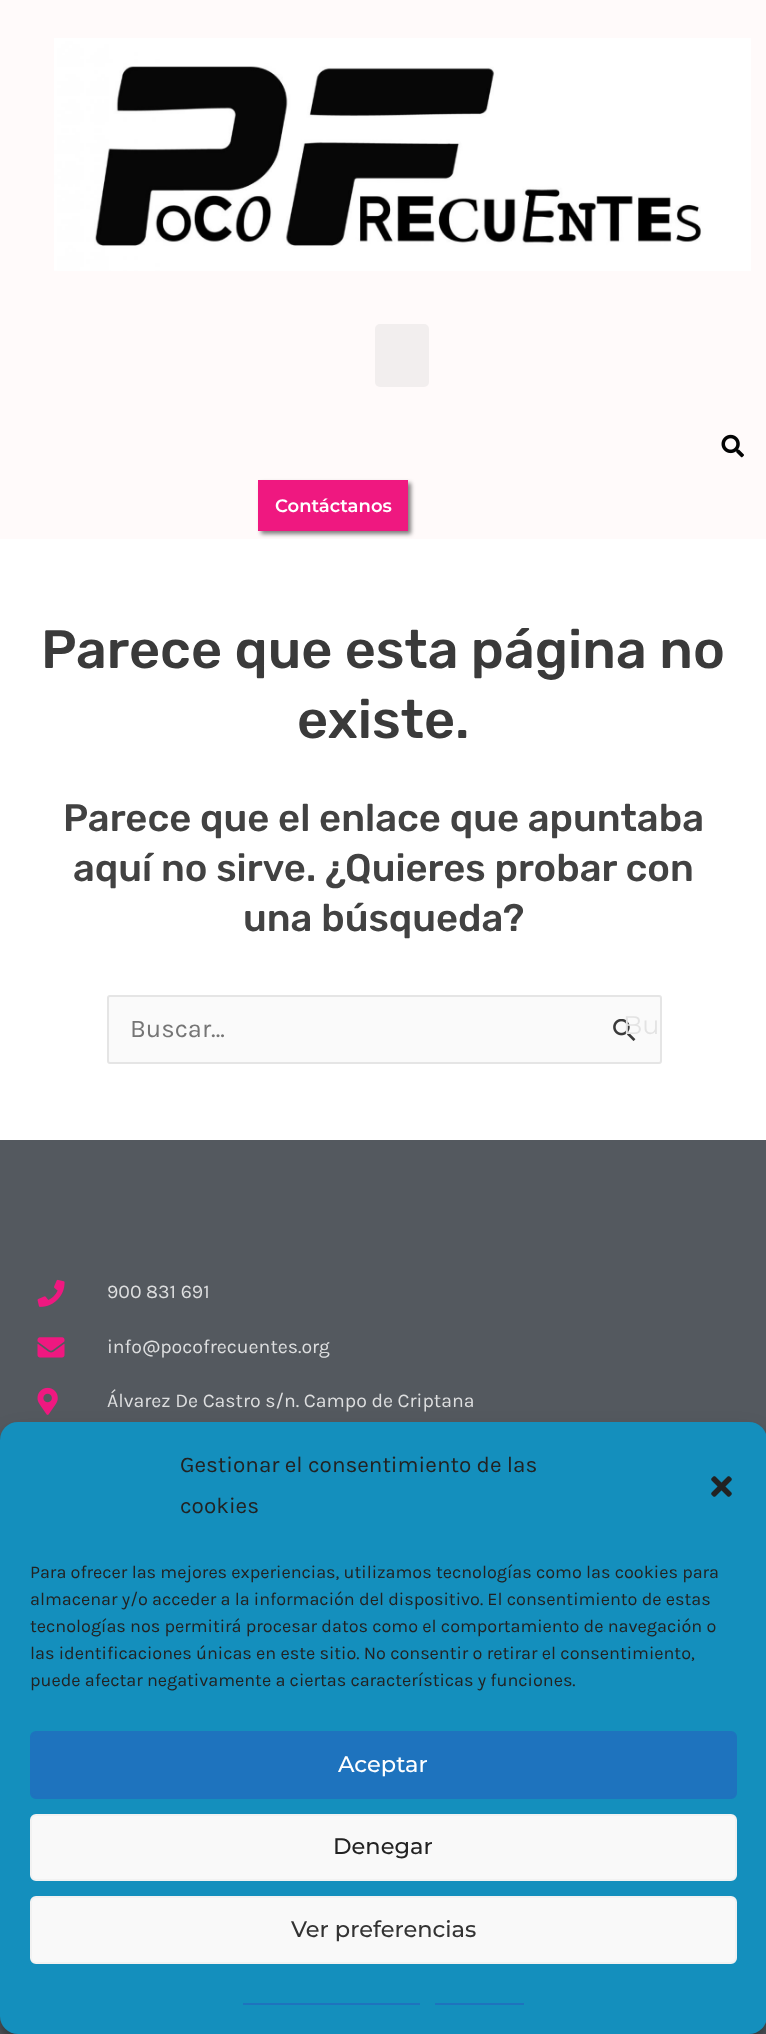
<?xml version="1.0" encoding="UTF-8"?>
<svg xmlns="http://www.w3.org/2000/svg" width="766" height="2034">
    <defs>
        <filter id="blur1" x="-50%" y="-200%" width="200%" height="500%"><feGaussianBlur stdDeviation="2"/></filter>
        <filter id="blur2" x="-50%" y="-200%" width="200%" height="500%"><feGaussianBlur stdDeviation="4.5"/></filter>
        <filter id="blur3" x="-50%" y="-200%" width="200%" height="500%"><feGaussianBlur stdDeviation="15"/></filter>
    </defs>
    <rect width="100%" height="100%" fill="#FFFFFF"/>
    <rect x="0" y="0" width="766" height="539" fill="#FFFAFA"/>
    <image x="54" y="38" width="697" height="233" href="img_01.png"/>
    <rect x="375" y="324" width="54" height="63" rx="5" fill="#F2EEEE"/>
    <image x="721" y="434" width="23" height="24" href="img_02.png"/>
    <rect x="261" y="483" width="150" height="51" fill="#000000" fill-opacity="0.5" filter="url(#blur1)"/>
    <rect x="258" y="480" width="150" height="51" fill="#EF1880"/>
    <text x="275" y="512" font-family="Montserrat" font-size="18" font-weight="600" fill="#FFFFFF">Contáctanos</text>
    <text x="41" y="668" font-family="Rubik" font-size="54" font-weight="500" fill="#3A3A3A">Parece que esta página no</text>
    <text x="297" y="738" font-family="Rubik" font-size="54" font-weight="500" fill="#3A3A3A">existe.</text>
    <text x="63" y="831" font-family="Rubik" font-size="38.25" font-weight="500" fill="#424242">Parece que el enlace que apuntaba</text>
    <text x="73" y="881" font-family="Rubik" font-size="38.25" font-weight="500" fill="#424242">aquí no sirve. ¿Quieres probar con</text>
    <text x="243" y="931" font-family="Rubik" font-size="38.25" font-weight="500" fill="#424242">una búsqueda?</text>
    <rect x="108" y="996" width="553" height="67" rx="2" fill="#FAFAFA" stroke="#E5E5E5" stroke-width="2"/>
    <text x="130" y="1037" font-family="Karla" font-size="25.5" fill="#757575">Buscar...</text>
    <image x="613" y="1019" width="23" height="22" href="img_03.png"/>
    <text x="623" y="1034" font-family="Montserrat" font-size="25.5" fill="#E3E3E3">Bu</text>
    <rect x="0" y="1140" width="766" height="894" fill="#54595F"/>
    <image x="37" y="1279" width="28" height="28" href="img_04.png"/>
    <text x="107" y="1298" font-family="Karla" font-size="19.5" fill="#DDDEDF">900 831 691</text>
    <image x="37" y="1337" width="28" height="21" href="img_05.png"/>
    <text x="107" y="1353" font-family="Karla" font-size="19.5" fill="#DDDEDF">info@pocofrecuentes.org</text>
    <image x="37" y="1387" width="21" height="28" href="img_06.png"/>
    <text x="107" y="1407" font-family="Karla" font-size="19.5" fill="#DDDEDF">Álvarez De Castro s/n. Campo de Criptana</text>
    <rect x="0" y="1431" width="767" height="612" rx="18" fill="#000000" fill-opacity="0.23" filter="url(#blur2)"/>
    <rect x="0" y="1437" width="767" height="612" rx="18" fill="#000000" fill-opacity="0.19" filter="url(#blur3)"/>
    <rect x="0" y="1422" width="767" height="612" rx="18" fill="#148FBD"/>
    <text font-family="Karla" font-size="22.5" fill="#222222">
        <tspan x="180" y="1472">Gestionar el consentimiento de las</tspan>
        <tspan x="180" y="1513">cookies</tspan>
    </text>
    <image x="711" y="1476" width="21" height="21" href="img_07.png"/>
    <text font-family="Karla" font-size="18" fill="#222222">
        <tspan x="30" y="1578">Para ofrecer las mejores experiencias, utilizamos tecnologías como las cookies para</tspan>
        <tspan x="30" y="1605">almacenar y/o acceder a la información del dispositivo. El consentimiento de estas</tspan>
        <tspan x="30" y="1632">tecnologías nos permitirá procesar datos como el comportamiento de navegación o</tspan>
        <tspan x="30" y="1659">las identificaciones únicas en este sitio. No consentir o retirar el consentimiento,</tspan>
        <tspan x="30" y="1686">puede afectar negativamente a ciertas características y funciones.</tspan>
    </text>
    <rect x="31" y="1732" width="705" height="66" rx="5" fill="#1E73BE" stroke="#1E73BE" stroke-width="2"/>
    <text x="338" y="1772" font-family="Montserrat" font-size="22.5" font-weight="500" fill="#FFFFFF">Aceptar</text>
    <rect x="31" y="1815" width="705" height="65" rx="5" fill="#F9F9F9" stroke="#F2F2F2" stroke-width="2"/>
    <text x="333" y="1854" font-family="Montserrat" font-size="22.5" font-weight="500" fill="#222222">Denegar</text>
    <rect x="31" y="1897" width="705" height="66" rx="5" fill="#F9F9F9" stroke="#F2F2F2" stroke-width="2"/>
    <text x="291" y="1937" font-family="Montserrat" font-size="22.5" font-weight="500" fill="#333333">Ver preferencias</text>
    <rect x="243" y="2003" width="177" height="2" fill="#1E73BE"/>
    <rect x="435" y="2003" width="89" height="2" fill="#1E73BE"/>
</svg>
